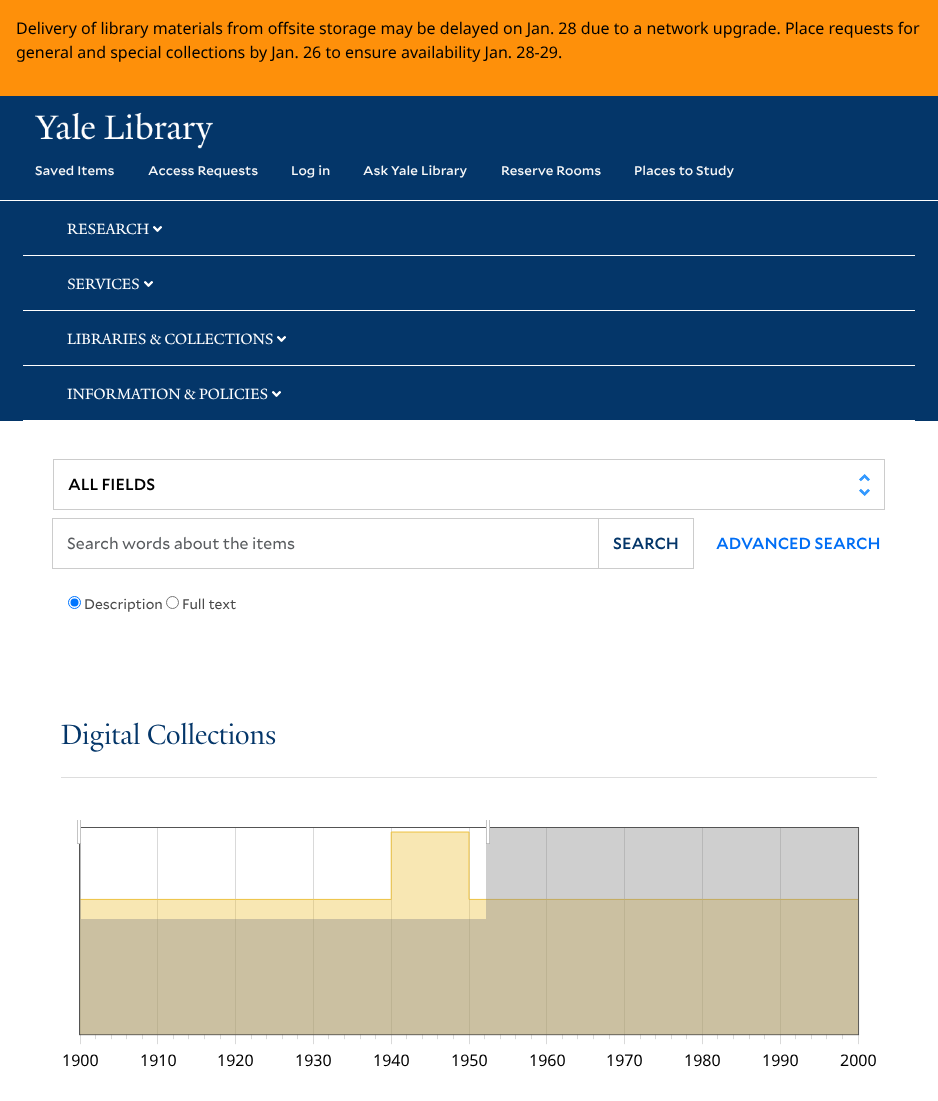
<?xml version="1.0" encoding="UTF-8"?>
<svg xmlns="http://www.w3.org/2000/svg" width="938" height="1101">
    <rect width="100%" height="100%" fill="#FFFFFF"/>
    <rect x="0" y="0" width="938" height="96" fill="#FE900A"/>
    <text font-family="Noto Sans" font-size="16" fill="#000000">
        <tspan x="16" y="34">Delivery of library materials from offsite storage may be delayed on Jan. 28 due to a network upgrade. Place requests for</tspan>
        <tspan x="16" y="58">general and special collections by Jan. 26 to ensure availability Jan. 28-29.</tspan>
    </text>
    <rect x="0" y="96" width="938" height="104" fill="#043669"/>
    <image x="35" y="112" width="178" height="37" href="img_01.png"/>
    <text x="35" y="175" font-family="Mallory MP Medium" font-size="12" font-weight="500" fill="#F9F9F9">Saved Items</text>
    <text x="148" y="175" font-family="Mallory MP Medium" font-size="12" font-weight="500" fill="#F9F9F9">Access Requests</text>
    <text x="291" y="175" font-family="Mallory MP Medium" font-size="12" font-weight="500" fill="#F9F9F9">Log in</text>
    <text x="363" y="175" font-family="Mallory MP Medium" font-size="12" font-weight="500" fill="#F9F9F9">Ask Yale Library</text>
    <text x="501" y="175" font-family="Mallory MP Medium" font-size="12" font-weight="500" fill="#F9F9F9">Reserve Rooms</text>
    <text x="634" y="175" font-family="Mallory MP Medium" font-size="12" font-weight="500" fill="#F9F9F9">Places to Study</text>
    <rect x="0" y="201" width="938" height="220" fill="#043669"/>
    <rect x="23" y="255" width="892" height="1" fill="#FFFFFF"/>
    <text x="67" y="234" font-family="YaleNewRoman" font-size="16" fill="#FFFFFF">RESEARCH</text>
    <image x="153" y="226" width="9" height="6" href="img_02.png"/>
    <rect x="23" y="310" width="892" height="1" fill="#FFFFFF"/>
    <text x="67" y="289" font-family="YaleNewRoman" font-size="16" fill="#FFFFFF">SERVICES</text>
    <image x="144" y="281" width="9" height="6" href="img_02.png"/>
    <rect x="23" y="365" width="892" height="1" fill="#FFFFFF"/>
    <text x="67" y="344" font-family="YaleNewRoman" font-size="16" fill="#FFFFFF">LIBRARIES &amp; COLLECTIONS</text>
    <image x="277" y="336" width="9" height="6" href="img_02.png"/>
    <rect x="23" y="420" width="892" height="1" fill="#FFFFFF"/>
    <text x="67" y="399" font-family="YaleNewRoman" font-size="16" fill="#FFFFFF">INFORMATION &amp; POLICIES</text>
    <image x="272" y="391" width="9" height="6" href="img_02.png"/>
    <image x="859" y="474" width="11" height="22" href="img_03.png"/>
    <rect x="53.5" y="459.5" width="831" height="50" fill="none" stroke="#CCCCCC"/>
    <text x="68" y="490" font-family="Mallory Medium" font-size="16" font-weight="500" fill="#000000">ALL FIELDS</text>
    <rect x="52.5" y="518.5" width="546" height="50" fill="none" stroke="#CCCCCC"/>
    <text x="67" y="549" font-family="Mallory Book" font-size="16" fill="#595C5F">Search words about the items</text>
    <rect x="598.5" y="518.5" width="95" height="50" fill="none" stroke="#CCCCCC"/>
    <text x="613" y="549" font-family="Mallory Medium" font-size="16" font-weight="500" fill="#043669">SEARCH</text>
    <text x="716" y="549" font-family="Mallory Medium" font-size="16" font-weight="500" fill="#006EF5">ADVANCED SEARCH</text>
    <circle cx="74.5" cy="602.5" r="6" fill="none" stroke="#0075FF"/>
    <circle cx="74.5" cy="602.5" r="4" fill="#0075FF"/>
    <text x="84" y="609" font-family="Mallory Book" font-size="14" fill="#4A4A4A">Description</text>
    <circle cx="172.5" cy="602.5" r="6" fill="none" stroke="#767676"/>
    <text x="182" y="609" font-family="Mallory Book" font-size="14" fill="#4A4A4A">Full text</text>
    <rect x="61" y="777" width="816" height="1" fill="#DDDDDD"/>
    <text x="61" y="744" font-family="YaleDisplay" font-size="30" fill="#043669">Digital Collections</text>
    <image x="79" y="827" width="781" height="218" href="img_05.png"/>
    <image x="77" y="820" width="781" height="214" href="img_04.png"/>
    <text x="62" y="1066" font-family="Noto Sans" font-size="16" fill="#000000">1900</text>
    <text x="140" y="1066" font-family="Noto Sans" font-size="16" fill="#000000">1910</text>
    <text x="217" y="1066" font-family="Noto Sans" font-size="16" fill="#000000">1920</text>
    <text x="295" y="1066" font-family="Noto Sans" font-size="16" fill="#000000">1930</text>
    <text x="373" y="1066" font-family="Noto Sans" font-size="16" fill="#000000">1940</text>
    <text x="451" y="1066" font-family="Noto Sans" font-size="16" fill="#000000">1950</text>
    <text x="529" y="1066" font-family="Noto Sans" font-size="16" fill="#000000">1960</text>
    <text x="606" y="1066" font-family="Noto Sans" font-size="16" fill="#000000">1970</text>
    <text x="684" y="1066" font-family="Noto Sans" font-size="16" fill="#000000">1980</text>
    <text x="762" y="1066" font-family="Noto Sans" font-size="16" fill="#000000">1990</text>
    <text x="840" y="1066" font-family="Noto Sans" font-size="16" fill="#000000">2000</text>
</svg>
